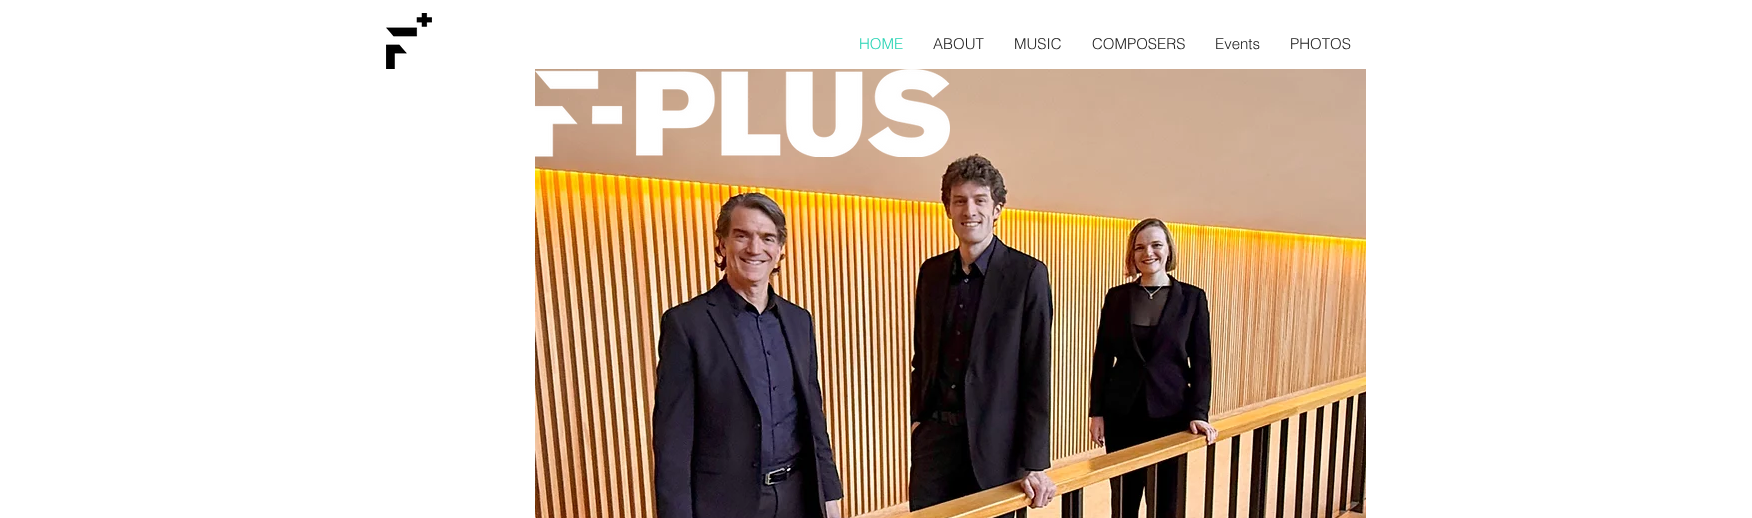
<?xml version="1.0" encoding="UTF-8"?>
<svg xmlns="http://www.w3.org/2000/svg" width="1752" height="518">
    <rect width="100%" height="100%" fill="#FFFFFF"/>
    <image x="386" y="13" width="46" height="56" href="img_01.png"/>
    <text x="859" y="49" font-family="helvetica" font-size="15" font-weight="300" fill="#27D3B4">HOME</text>
    <text x="933" y="49" font-family="helvetica" font-size="15" font-weight="300" fill="#222222">ABOUT</text>
    <text x="1014" y="49" font-family="helvetica" font-size="15" font-weight="300" fill="#222222">MUSIC</text>
    <text x="1092" y="49" font-family="helvetica" font-size="15" font-weight="300" fill="#222222">COMPOSERS</text>
    <text x="1215" y="49" font-family="helvetica" font-size="15" font-weight="300" fill="#222222">Events</text>
    <text x="1290" y="49" font-family="helvetica" font-size="15" font-weight="300" fill="#222222">PHOTOS</text>
    <image x="535" y="69" width="831" height="449" href="img_02.png"/>
    <image x="535" y="69" width="415" height="88" href="img_03.png"/>
</svg>
